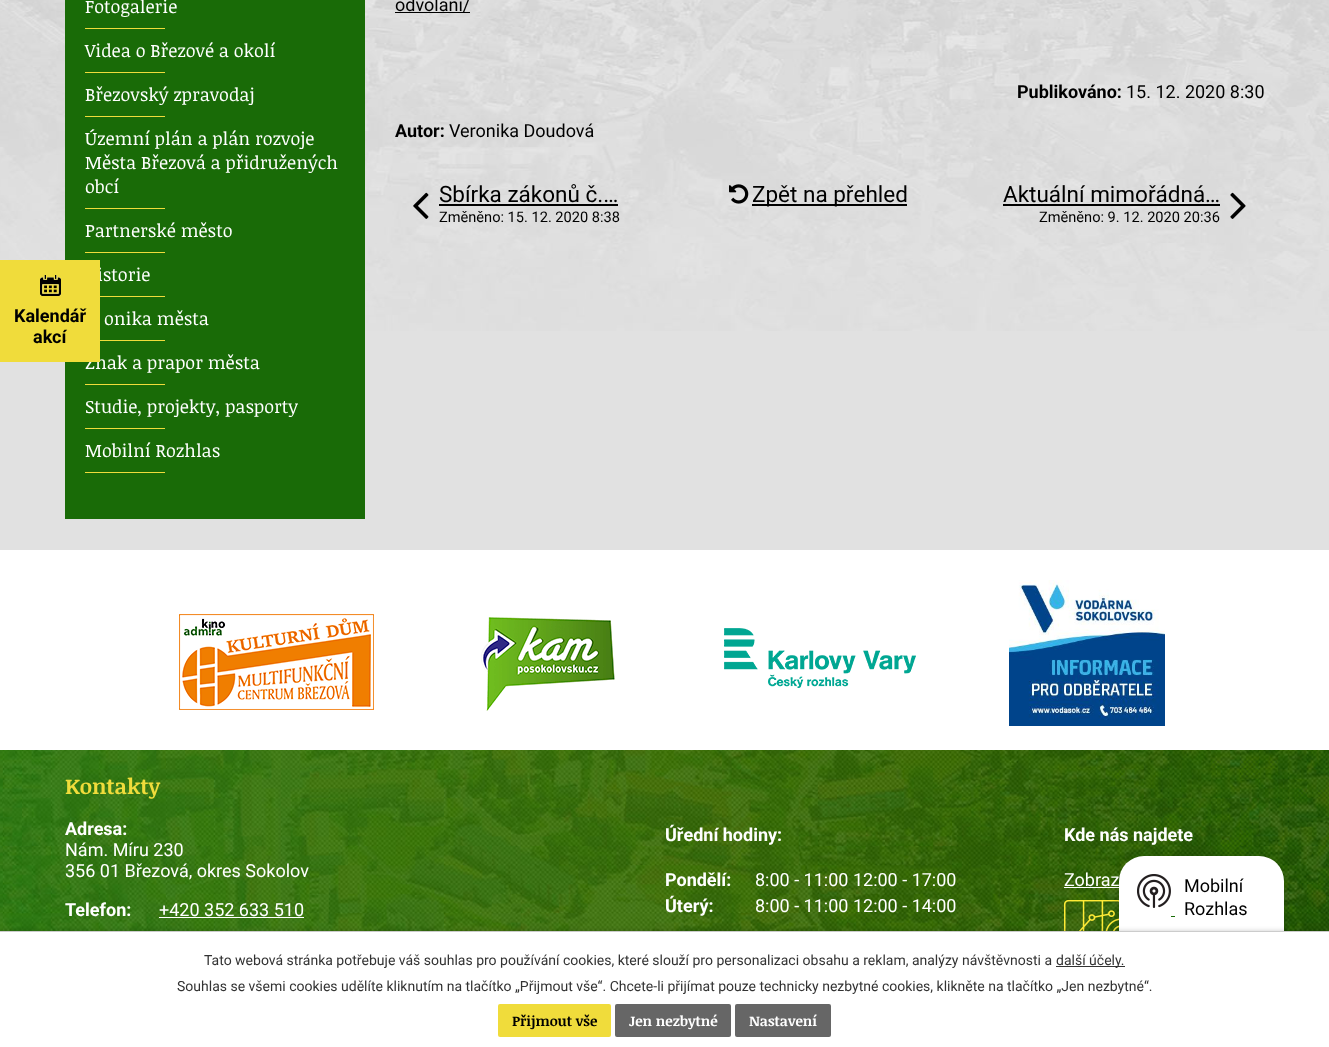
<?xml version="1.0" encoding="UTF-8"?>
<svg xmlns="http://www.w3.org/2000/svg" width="1329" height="1047">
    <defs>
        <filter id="blur1" x="-50%" y="-200%" width="200%" height="500%"><feGaussianBlur stdDeviation="5"/></filter>
        <filter id="blur2" x="-50%" y="-200%" width="200%" height="500%"><feGaussianBlur stdDeviation="2.5"/></filter>
    </defs>
    <rect width="100%" height="100%" fill="#E1E1E1"/>
    <image x="0" y="0" width="1329" height="331" href="img_01.png"/>
    <rect x="65" y="0" width="300" height="519" fill="#196B07"/>
    <text x="97" y="281" font-family="Noticia Text" font-size="18" fill="#FFFFFF">istorie</text>
    <text x="85" y="369" font-family="Noticia Text" font-size="18" fill="#FFFFFF">Znak a prapor města</text>
    <rect x="0" y="260" width="100" height="102" fill="#F0DC3B"/>
    <image x="40" y="275" width="21" height="21" href="img_02.png"/>
    <text x="14" y="322" font-family="Roboto" font-size="18" font-weight="700" fill="#000000">Kalendář</text>
    <text x="33" y="343" font-family="Roboto" font-size="18" font-weight="700" fill="#000000">akcí</text>
    <text x="85" y="13" font-family="Noticia Text" font-size="18" fill="#FFFFFF">Fotogalerie</text>
    <rect x="85" y="28" width="80" height="1" fill="#F0DC3B"/>
    <text x="85" y="57" font-family="Noticia Text" font-size="18" fill="#FFFFFF">Videa o Březové a okolí</text>
    <rect x="85" y="72" width="80" height="1" fill="#F0DC3B"/>
    <text x="85" y="101" font-family="Noticia Text" font-size="18" fill="#FFFFFF">Březovský zpravodaj</text>
    <rect x="85" y="116" width="80" height="1" fill="#F0DC3B"/>
    <text font-family="Noticia Text" font-size="18" fill="#FFFFFF">
        <tspan x="85" y="145">Územní plán a plán rozvoje</tspan>
        <tspan x="85" y="169">Města Březová a přidružených</tspan>
        <tspan x="85" y="193">obcí</tspan>
    </text>
    <rect x="85" y="208" width="80" height="1" fill="#F0DC3B"/>
    <text x="85" y="237" font-family="Noticia Text" font-size="18" fill="#FFFFFF">Partnerské město</text>
    <rect x="85" y="252" width="80" height="1" fill="#F0DC3B"/>
    <rect x="100" y="296" width="65" height="1" fill="#F0DC3B"/>
    <text x="104" y="325" font-family="Noticia Text" font-size="18" fill="#FFFFFF">onika města</text>
    <rect x="100" y="340" width="65" height="1" fill="#F0DC3B"/>
    <rect x="85" y="384" width="80" height="1" fill="#F0DC3B"/>
    <text x="85" y="413" font-family="Noticia Text" font-size="18" fill="#FFFFFF">Studie, projekty, pasporty</text>
    <rect x="85" y="428" width="80" height="1" fill="#F0DC3B"/>
    <text x="85" y="457" font-family="Noticia Text" font-size="18" fill="#FFFFFF">Mobilní Rozhlas</text>
    <rect x="85" y="472" width="80" height="1" fill="#F0DC3B"/>
    <rect x="395" y="12" width="75" height="1" fill="#000000"/>
    <text x="395" y="11" font-family="Roboto" font-size="18" fill="#000000">odvolani/</text>
    <text x="1017" y="98" font-family="Roboto" font-size="18" font-weight="700" fill="#000000">Publikováno:</text>
    <text x="1126" y="98" font-family="Roboto" font-size="18" fill="#000000">15. 12. 2020 8:30</text>
    <text x="395" y="137" font-family="Roboto" font-size="18" font-weight="700" fill="#000000">Autor:</text>
    <text x="449" y="137" font-family="Roboto" font-size="18" fill="#000000">Veronika Doudová</text>
    <image x="413" y="192" width="16" height="27" href="img_03.png"/>
    <text x="439" y="202" font-family="Roboto" font-size="22.5" fill="#000000">Sbírka zákonů č.…</text>
    <rect x="439" y="204" width="179" height="2" fill="#000000"/>
    <text x="439" y="222" font-family="Roboto" font-size="14.6" fill="#000000">Změněno: 15. 12. 2020 8:38</text>
    <image x="729" y="184" width="20" height="20" href="img_04.png"/>
    <rect x="752" y="204" width="155" height="2" fill="#000000"/>
    <text x="752" y="202" font-family="Roboto" font-size="22.5" fill="#000000">Zpět na přehled</text>
    <text x="1003" y="202" font-family="Roboto" font-size="22.5" fill="#000000">Aktuální mimořádná…</text>
    <rect x="1003" y="204" width="217" height="2" fill="#000000"/>
    <text x="1039" y="222" font-family="Roboto" font-size="14.6" fill="#000000">Změněno: 9. 12. 2020 20:36</text>
    <image x="1230" y="192" width="16" height="27" href="img_05.png"/>
    <image x="0" y="750" width="1329" height="181" href="img_11.png"/>
    <rect x="1064" y="887" width="55" height="1" fill="#FFFFFF"/>
    <image x="1064" y="900" width="55" height="31" href="img_12.png"/>
    <rect x="1119" y="859" width="165" height="146" rx="25" fill="#000000" fill-opacity="0.2" filter="url(#blur1)"/>
    <rect x="1119" y="856" width="165" height="146" rx="25" fill="#FFFFFF"/>
    <image x="1137" y="874" width="34" height="34" href="img_06.png"/>
    <text font-family="Roboto" font-size="18" fill="#000000">
        <tspan x="1184" y="892">Mobilní</tspan>
        <tspan x="1184" y="915">Rozhlas</tspan>
    </text>
    <rect x="1171" y="916" width="4" height="1" fill="#196B07"/>
    <rect x="0" y="550" width="1329" height="200" fill="#FFFFFF"/>
    <image x="179" y="614" width="195" height="96" href="img_07.png"/>
    <image x="481" y="617" width="134" height="94" href="img_08.png"/>
    <image x="724" y="628" width="192" height="60" href="img_09.png"/>
    <image x="1009" y="580" width="156" height="146" href="img_10.png"/>
    <text x="65" y="794" font-family="Noticia Text" font-size="21.5" font-weight="700" fill="#F0DC3B">Kontakty</text>
    <text x="65" y="835" font-family="Roboto" font-size="18" font-weight="700" fill="#FFFFFF">Adresa:</text>
    <text font-family="Roboto" font-size="18" fill="#FFFFFF">
        <tspan x="65" y="856">Nám. Míru 230</tspan>
        <tspan x="65" y="877">356 01 Březová, okres Sokolov</tspan>
    </text>
    <text x="65" y="916" font-family="Roboto" font-size="18" font-weight="700" fill="#FFFFFF">Telefon:</text>
    <text x="159" y="916" font-family="Roboto" font-size="18" fill="#FFFFFF">+420 352 633 510</text>
    <rect x="159" y="917" width="145" height="1" fill="#FFFFFF"/>
    <text x="665" y="841" font-family="Roboto" font-size="18" font-weight="700" fill="#FFFFFF">Úřední hodiny:</text>
    <text x="665" y="886" font-family="Roboto" font-size="18" font-weight="700" fill="#FFFFFF">Pondělí:</text>
    <text x="755" y="886" font-family="Roboto" font-size="18" fill="#FFFFFF">8:00 - 11:00 12:00 - 17:00</text>
    <text x="665" y="912" font-family="Roboto" font-size="18" font-weight="700" fill="#FFFFFF">Úterý:</text>
    <text x="755" y="912" font-family="Roboto" font-size="18" fill="#FFFFFF">8:00 - 11:00 12:00 - 14:00</text>
    <text x="1064" y="841" font-family="Roboto" font-size="18" font-weight="700" fill="#FFFFFF">Kde nás najdete</text>
    <text x="1064" y="886" font-family="Roboto" font-size="18" fill="#FFFFFF">Zobraz</text>
    <rect x="0" y="931" width="1329" height="116" fill="#000000" fill-opacity="0.2" filter="url(#blur2)"/>
    <rect x="0" y="932" width="1329" height="115" fill="#FFFFFF"/>
    <rect x="0" y="931" width="1329" height="1" fill="#CCCCCC"/>
    <text x="204" y="965" font-family="Roboto" font-size="14" fill="#333333">Tato webová stránka potřebuje váš souhlas pro používání cookies, které slouží pro personalizaci obsahu a reklam, analýzy návštěvnosti a</text>
    <rect x="1056" y="966" width="69" height="1" fill="#333333"/>
    <text x="1056" y="965" font-family="Roboto" font-size="14" fill="#333333">další účely.</text>
    <text x="177" y="991" font-family="Roboto" font-size="14" fill="#333333">Souhlas se všemi cookies udělíte kliknutím na tlačítko „Přijmout vše“. Chcete-li přijímat pouze technicky nezbytné cookies, klikněte na tlačítko „Jen nezbytné“.</text>
    <rect x="498" y="1004" width="113" height="33" rx="2" fill="#F0DC3B"/>
    <text x="512" y="1026" font-family="Noticia Text" font-size="14" font-weight="700" fill="#000000">Přijmout vše</text>
    <rect x="615" y="1004" width="116" height="33" rx="2" fill="#666666"/>
    <text x="629" y="1026" font-family="Noticia Text" font-size="14" font-weight="700" fill="#FFFFFF">Jen nezbytné</text>
    <rect x="735" y="1004" width="96" height="33" rx="2" fill="#666666"/>
    <text x="749" y="1026" font-family="Noticia Text" font-size="14" font-weight="700" fill="#FFFFFF">Nastavení</text>
</svg>
